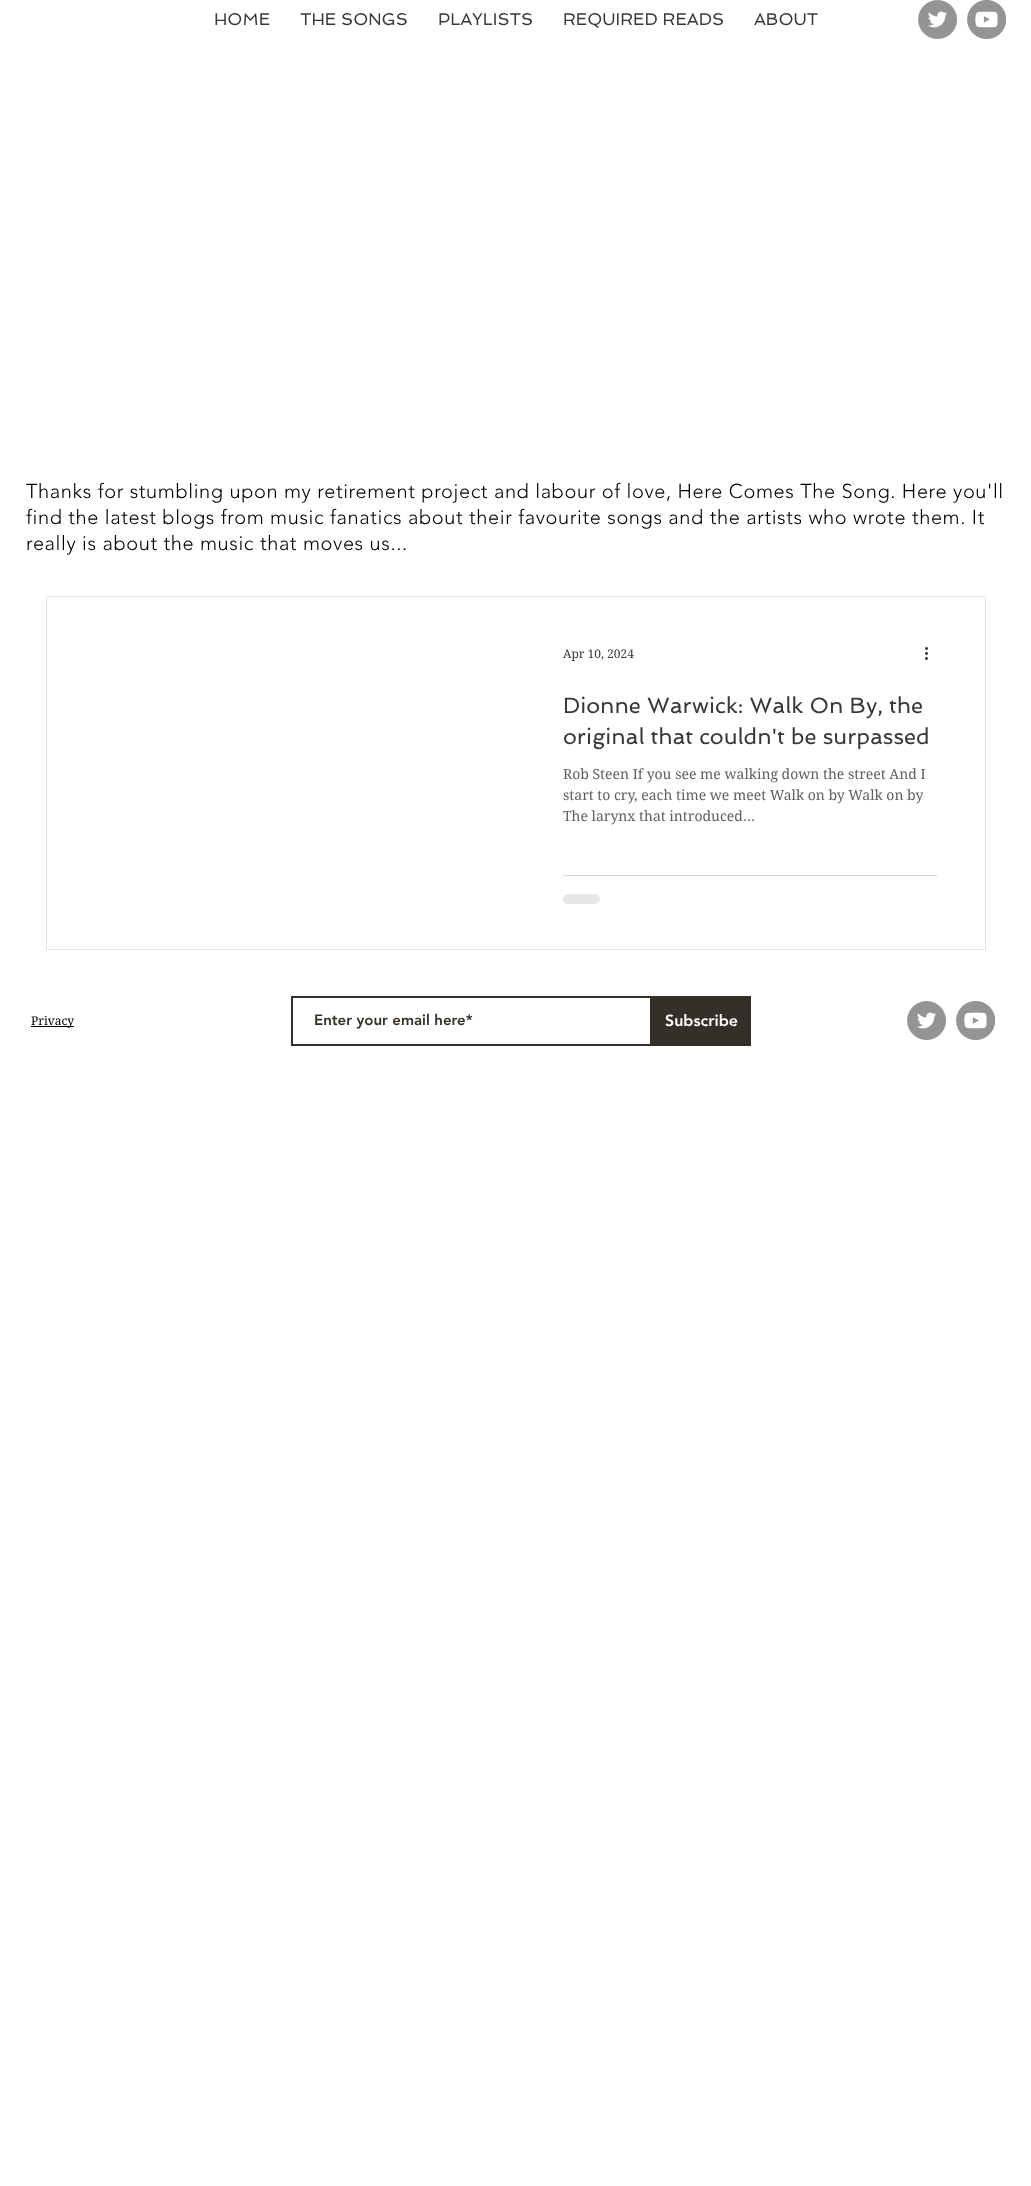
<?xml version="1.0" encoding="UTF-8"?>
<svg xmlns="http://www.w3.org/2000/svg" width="1031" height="2186">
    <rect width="100%" height="100%" fill="#FFFFFF"/>
    <text x="214" y="25" font-family="Spinnaker" font-size="17" fill="#393838">HOME</text>
    <text x="300" y="25" font-family="Spinnaker" font-size="17" fill="#393838">THE SONGS</text>
    <text x="438" y="25" font-family="Spinnaker" font-size="17" fill="#393838">PLAYLISTS</text>
    <text x="563" y="25" font-family="Spinnaker" font-size="17" fill="#393838">REQUIRED READS</text>
    <text x="754" y="25" font-family="Spinnaker" font-size="17" fill="#393838">ABOUT</text>
    <image x="918" y="0" width="39" height="39" href="img_01.png"/>
    <image x="967" y="0" width="39" height="39" href="img_02.png"/>
    <text font-family="'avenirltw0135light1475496'" font-size="20" font-weight="300" letter-spacing="0.6" fill="#000000">
        <tspan x="26" y="498">Thanks for stumbling upon my retirement project and labour of love, Here Comes The Song. Here you'll</tspan>
        <tspan x="26" y="524">find the latest blogs from music fanatics about their favourite songs and the artists who wrote them. It</tspan>
        <tspan x="26" y="550">really is about the music that moves us...</tspan>
    </text>
    <rect x="46.5" y="596.5" width="939" height="353" fill="none" stroke="#E3E3E3"/>
    <text x="563" y="658" font-family="'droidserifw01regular'" font-size="12" fill="#393838">Apr 10, 2024</text>
    <image x="925" y="647" width="3" height="13" href="img_03.png"/>
    <text font-family="Spinnaker" font-size="22" fill="#393838">
        <tspan x="563" y="713">Dionne Warwick: Walk On By, the</tspan>
        <tspan x="563" y="744">original that couldn't be surpassed</tspan>
    </text>
    <text font-family="'droidserifw01regular'" font-size="14" fill="#616060">
        <tspan x="563" y="779">Rob Steen If you see me walking down the street And I</tspan>
        <tspan x="563" y="800">start to cry, each time we meet Walk on by Walk on by</tspan>
        <tspan x="563" y="821">The larynx that introduced...</tspan>
    </text>
    <rect x="563" y="875" width="374" height="1" fill="#D7D7D7"/>
    <rect x="563" y="894" width="37" height="10" rx="5" fill="#E7E7E7"/>
    <rect x="31" y="1026" width="43" height="1" fill="#000000"/>
    <text x="31" y="1025" font-family="'droidserifw01regular'" font-size="12" fill="#000000">Privacy</text>
    <rect x="292" y="997" width="359" height="48" fill="none" stroke="#352F2A" stroke-width="2"/>
    <text x="314" y="1025" font-family="'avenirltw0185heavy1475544'" font-size="15" font-weight="900" fill="#352F2A">Enter your email here*</text>
    <rect x="652" y="996" width="99" height="50" fill="#352F2A"/>
    <text x="665" y="1026" font-family="'avenirltw0185heavy1475544'" font-size="16" font-weight="900" fill="#FFFFFF">Subscribe</text>
    <image x="907" y="1001" width="39" height="39" href="img_01.png"/>
    <image x="956" y="1001" width="39" height="39" href="img_02.png"/>
</svg>
